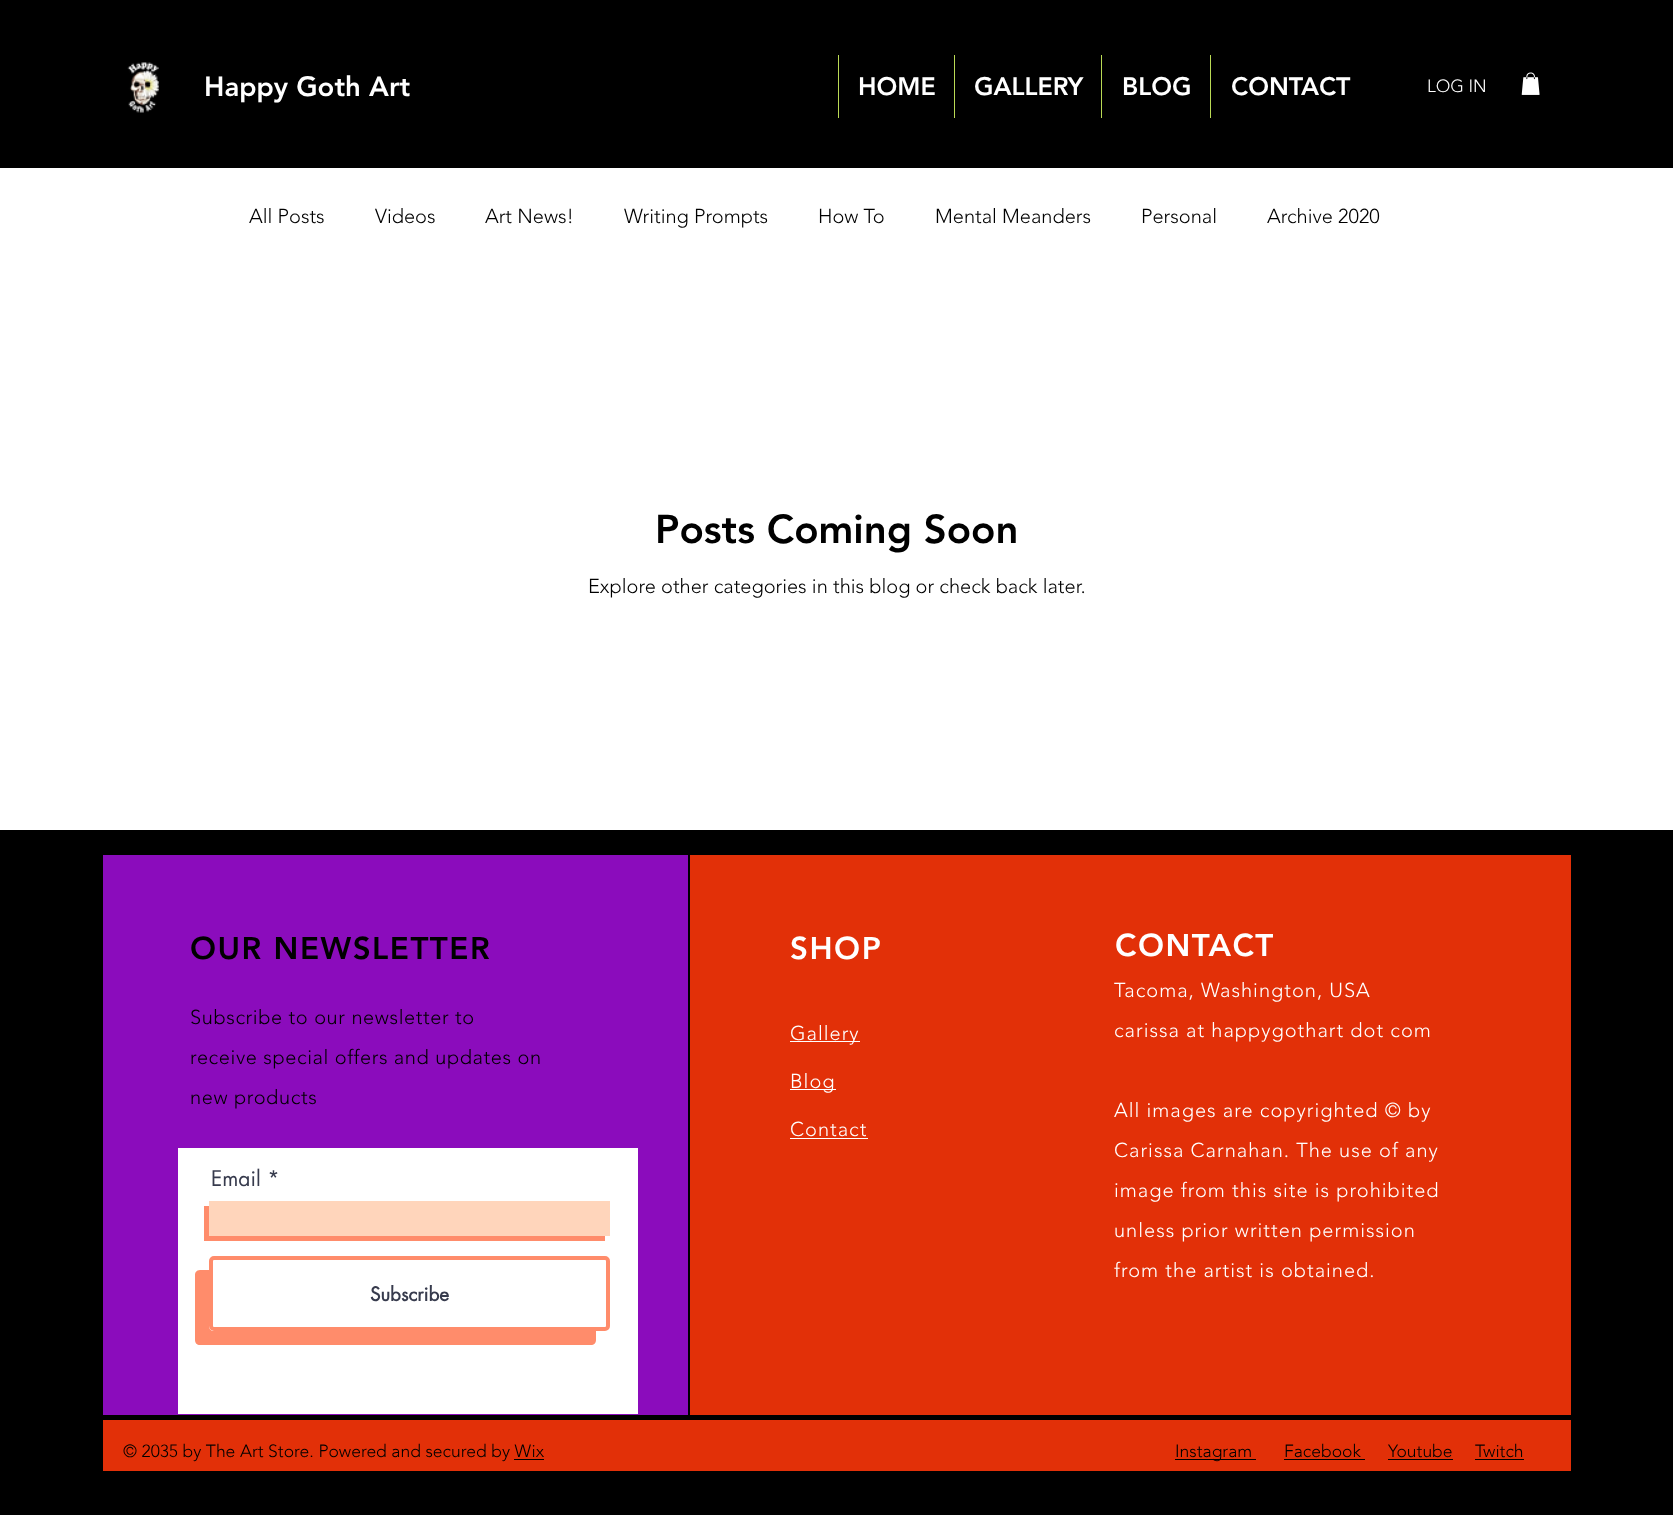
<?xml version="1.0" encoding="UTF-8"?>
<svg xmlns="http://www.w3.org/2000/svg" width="1673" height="1515">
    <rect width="100%" height="100%" fill="#FFFFFF"/>
    <rect x="0" y="0" width="1673" height="168" fill="#000000"/>
    <image x="127" y="62" width="32" height="51" href="img_01.png"/>
    <text x="204" y="96" font-family="'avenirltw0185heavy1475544'" font-size="27.5" font-weight="900" fill="#FFFFFF">Happy Goth Art</text>
    <rect x="838" y="55" width="1" height="63" fill="#BADA55"/>
    <text x="858" y="95" font-family="'avenirltw0185heavy1475544'" font-size="25" font-weight="900" fill="#FFFFFF">HOME</text>
    <rect x="954" y="55" width="1" height="63" fill="#BADA55"/>
    <text x="974" y="95" font-family="'avenirltw0185heavy1475544'" font-size="25" font-weight="900" fill="#FFFFFF">GALLERY</text>
    <rect x="1101" y="55" width="1" height="63" fill="#BADA55"/>
    <text x="1122" y="95" font-family="'avenirltw0185heavy1475544'" font-size="25" font-weight="900" fill="#FFFFFF">BLOG</text>
    <rect x="1210" y="55" width="1" height="63" fill="#BADA55"/>
    <text x="1231" y="95" font-family="'avenirltw0185heavy1475544'" font-size="25" font-weight="900" fill="#FFFFFF">CONTACT</text>
    <text x="1427" y="92" font-family="'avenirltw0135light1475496'" font-size="17.5" font-weight="300" fill="#FFFFFF">LOG IN</text>
    <image x="1521" y="72" width="19" height="23" href="img_02.png"/>
    <text x="249" y="223" font-family="'avenirltw0135light1475496'" font-size="20" font-weight="300" fill="#000000">All Posts</text>
    <text x="375" y="223" font-family="'avenirltw0135light1475496'" font-size="20" font-weight="300" fill="#000000">Videos</text>
    <text x="485" y="223" font-family="'avenirltw0135light1475496'" font-size="20" font-weight="300" fill="#000000">Art News!</text>
    <text x="624" y="223" font-family="'avenirltw0135light1475496'" font-size="20" font-weight="300" fill="#000000">Writing Prompts</text>
    <text x="818" y="223" font-family="'avenirltw0135light1475496'" font-size="20" font-weight="300" fill="#000000">How To</text>
    <text x="935" y="223" font-family="'avenirltw0135light1475496'" font-size="20" font-weight="300" fill="#000000">Mental Meanders</text>
    <text x="1141" y="223" font-family="'avenirltw0135light1475496'" font-size="20" font-weight="300" fill="#000000">Personal</text>
    <text x="1267" y="223" font-family="'avenirltw0135light1475496'" font-size="20" font-weight="300" fill="#000000">Archive 2020</text>
    <text x="655" y="543" font-family="'avenirltw0185heavy1475544'" font-size="40" font-weight="900" fill="#000000">Posts Coming Soon</text>
    <text x="588" y="593" font-family="'avenirltw0135light1475496'" font-size="20" font-weight="300" fill="#000000">Explore other categories in this blog or check back later.</text>
    <rect x="0" y="830" width="1673" height="685" fill="#000000"/>
    <rect x="103" y="855" width="585" height="560" fill="#8B0CBC"/>
    <text x="190" y="959" font-family="'avenirltw0185heavy1475544'" font-size="31.25" font-weight="900" letter-spacing="1.5" fill="#000000">OUR NEWSLETTER</text>
    <text x="190" y="1024" font-family="'avenirltw0135light1475496'" font-size="20" font-weight="300" letter-spacing="0.6" fill="#000000">Subscribe to our newsletter to</text>
    <text x="190" y="1064" font-family="'avenirltw0135light1475496'" font-size="20" font-weight="300" letter-spacing="0.6" fill="#000000">receive special offers and updates on</text>
    <text x="190" y="1104" font-family="'avenirltw0135light1475496'" font-size="20" font-weight="300" letter-spacing="0.6" fill="#000000">new products</text>
    <rect x="178" y="1148" width="460" height="266" fill="#FFFFFF"/>
    <text x="211" y="1186" font-family="futura" font-size="21" fill="#373B4D">Email *</text>
    <path d="M 204 1206 V 1241 H 605 V 1236 H 209 V 1206 Z" fill="#FF8C6B"/>
    <rect x="209" y="1201" width="401" height="35" fill="#FFD5BB"/>
    <path d="M 200 1270 C 197 1270 195 1272 195 1275 V 1340 C 195 1343 197 1345 200 1345 H 591 C 594 1345 596 1343 596 1340 V 1331 H 214 C 211 1331 209 1329 209 1326 V 1270 Z" fill="#FF8C6B"/>
    <rect x="211" y="1258" width="397" height="71" rx="3" fill="#FFFFFF" stroke="#FF8C6B" stroke-width="4"/>
    <text x="370" y="1301" font-family="futura" font-size="18.75" font-weight="700" fill="#373B4D">Subscribe</text>
    <rect x="690" y="855" width="881" height="560" fill="#E23008"/>
    <text x="790" y="959" font-family="'avenirltw0185heavy1475544'" font-size="31.25" font-weight="900" letter-spacing="1.5" fill="#FFFFFF">SHOP</text>
    <rect x="790" y="1041" width="70" height="1" fill="#FFFFFF"/>
    <text x="790" y="1040" font-family="'avenirltw0135light1475496'" font-size="20" font-weight="300" letter-spacing="1" fill="#FFFFFF">Gallery</text>
    <rect x="790" y="1089" width="46" height="1" fill="#FFFFFF"/>
    <text x="790" y="1088" font-family="'avenirltw0135light1475496'" font-size="20" font-weight="300" letter-spacing="1" fill="#FFFFFF">Blog</text>
    <text x="790" y="1136" font-family="'avenirltw0135light1475496'" font-size="20" font-weight="300" letter-spacing="1" fill="#FFFFFF">Contact</text>
    <rect x="790" y="1138" width="78" height="1" fill="#FFFFFF"/>
    <text x="1115" y="956" font-family="'avenirltw0185heavy1475544'" font-size="31.25" font-weight="900" letter-spacing="1.5" fill="#FFFFFF">CONTACT</text>
    <text x="1114" y="997" font-family="'avenirltw0135light1475496'" font-size="20" font-weight="300" letter-spacing="1" fill="#FFFFFF">Tacoma, Washington, USA</text>
    <text x="1114" y="1037" font-family="'avenirltw0135light1475496'" font-size="20" font-weight="300" letter-spacing="1" fill="#FFFFFF">carissa at happygothart dot com</text>
    <text x="1114" y="1117" font-family="'avenirltw0135light1475496'" font-size="20" font-weight="300" letter-spacing="1" fill="#FFFFFF">All images are copyrighted © by</text>
    <text x="1114" y="1157" font-family="'avenirltw0135light1475496'" font-size="20" font-weight="300" letter-spacing="1" fill="#FFFFFF">Carissa Carnahan. The use of any</text>
    <text x="1114" y="1197" font-family="'avenirltw0135light1475496'" font-size="20" font-weight="300" letter-spacing="1" fill="#FFFFFF">image from this site is prohibited</text>
    <text x="1114" y="1237" font-family="'avenirltw0135light1475496'" font-size="20" font-weight="300" letter-spacing="1" fill="#FFFFFF">unless prior written permission</text>
    <text x="1114" y="1277" font-family="'avenirltw0135light1475496'" font-size="20" font-weight="300" letter-spacing="1" fill="#FFFFFF">from the artist is obtained.</text>
    <rect x="103" y="1420" width="1468" height="51" fill="#E23008"/>
    <text x="123" y="1457" font-family="'avenirltw0135light1475496'" font-size="17.5" font-weight="300" fill="#000000">© 2035 by The Art Store. Powered and secured by Wix</text>
    <rect x="514" y="1459" width="30" height="1" fill="#000000"/>
    <rect x="1175" y="1459" width="81" height="1" fill="#000000"/>
    <text x="1175" y="1457" font-family="'avenirltw0135light1475496'" font-size="17.5" font-weight="300" fill="#000000">Instagram</text>
    <text x="1284" y="1457" font-family="'avenirltw0135light1475496'" font-size="17.5" font-weight="300" fill="#000000">Facebook</text>
    <rect x="1284" y="1459" width="81" height="1" fill="#000000"/>
    <text x="1388" y="1457" font-family="'avenirltw0135light1475496'" font-size="17.5" font-weight="300" fill="#000000">Youtube</text>
    <rect x="1388" y="1459" width="65" height="1" fill="#000000"/>
    <text x="1475" y="1457" font-family="'avenirltw0135light1475496'" font-size="17.5" font-weight="300" fill="#000000">Twitch</text>
    <rect x="1475" y="1459" width="49" height="1" fill="#000000"/>
</svg>
